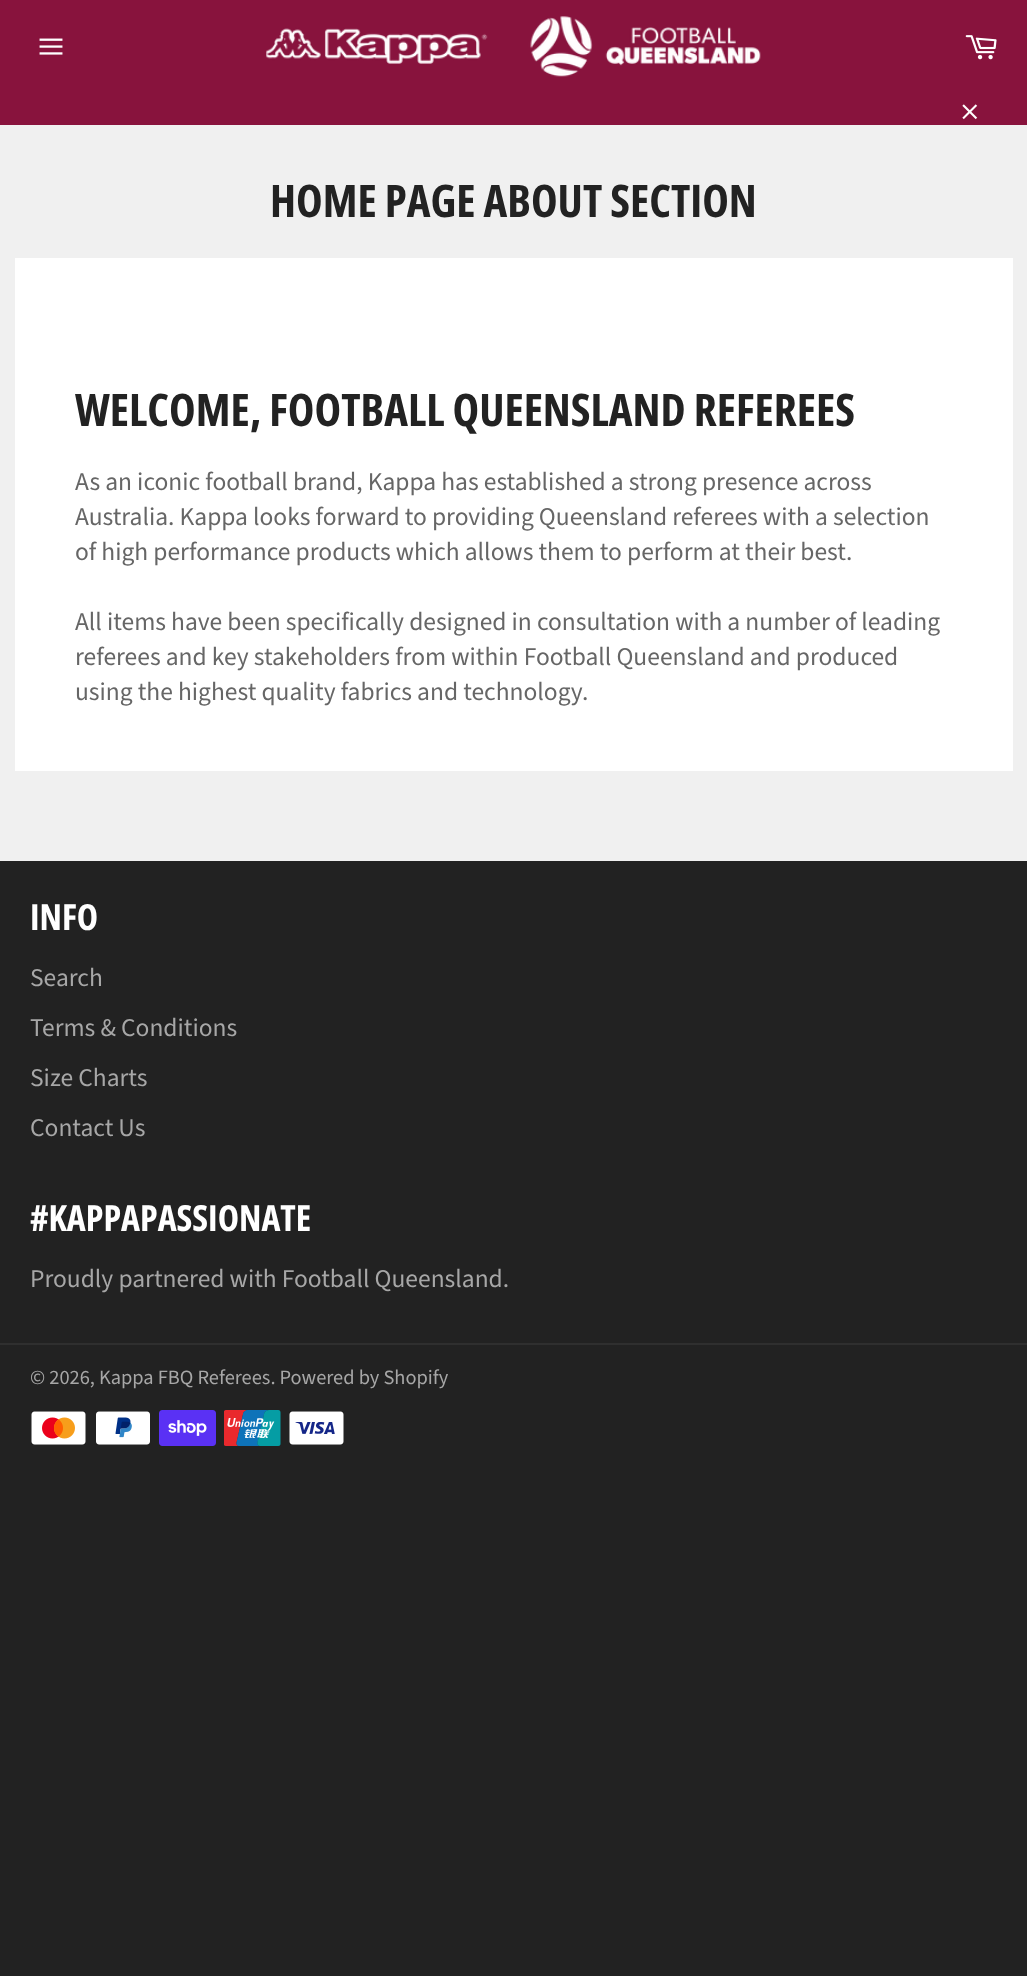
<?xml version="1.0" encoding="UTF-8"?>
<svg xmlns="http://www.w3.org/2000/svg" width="1027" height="1976">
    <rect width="100%" height="100%" fill="#222222"/>
    <rect x="0" y="125" width="1027" height="736" fill="#F0F0F0"/>
    <rect x="0" y="0" width="1027" height="125" fill="#88133D"/>
    <image x="39" y="38" width="24" height="17" href="img_01.png"/>
    <image x="266" y="16" width="495" height="61" href="img_02.png"/>
    <image x="965" y="35" width="32" height="25" href="img_03.png"/>
    <image x="962" y="104" width="16" height="16" href="img_04.png"/>
    <text x="270" y="217" font-family="Open Sans Condensed" font-size="45" font-weight="700" fill="#222222">HOME PAGE ABOUT SECTION</text>
    <rect x="15" y="258" width="998" height="513" fill="#FFFFFF"/>
    <text x="75" y="426" font-family="Open Sans Condensed" font-size="45" font-weight="700" fill="#222222">WELCOME, FOOTBALL QUEENSLAND REFEREES</text>
    <text font-family="Source Sans Pro" font-size="25.5" fill="#666666">
        <tspan x="75" y="490">As an iconic football brand, Kappa has established a strong presence across</tspan>
        <tspan x="75" y="525">Australia. Kappa looks forward to providing Queensland referees with a selection</tspan>
        <tspan x="75" y="560">of high performance products which allows them to perform at their best.</tspan>
    </text>
    <text font-family="Source Sans Pro" font-size="25.5" fill="#666666">
        <tspan x="75" y="630">All items have been specifically designed in consultation with a number of leading</tspan>
        <tspan x="75" y="665">referees and key stakeholders from within Football Queensland and produced</tspan>
        <tspan x="75" y="700">using the highest quality fabrics and technology.</tspan>
    </text>
    <text x="30" y="930" font-family="Open Sans Condensed" font-size="36" font-weight="700" fill="#FFFFFF">INFO</text>
    <text font-family="Source Sans Pro" font-size="25.5" fill="#A7A7A7">
        <tspan x="30" y="986">Search</tspan>
        <tspan x="30" y="1036">Terms &amp; Conditions</tspan>
        <tspan x="30" y="1086">Size Charts</tspan>
        <tspan x="30" y="1136">Contact Us</tspan>
    </text>
    <text x="30" y="1231" font-family="Open Sans Condensed" font-size="36" font-weight="700" fill="#FFFFFF">#KAPPAPASSIONATE</text>
    <text x="30" y="1287" font-family="Source Sans Pro" font-size="25.5" fill="#A7A7A7">Proudly partnered with Football Queensland.</text>
    <rect x="0" y="1343" width="1027" height="2" fill="#2F2F2F"/>
    <text x="30" y="1384" font-family="Source Sans Pro" font-size="20.4" fill="#A7A7A7">© 2026, Kappa FBQ Referees. Powered by Shopify</text>
    <image x="31" y="1411" width="55" height="34" href="img_05.png"/>
    <image x="96" y="1411" width="54" height="34" href="img_06.png"/>
    <image x="159" y="1410" width="57" height="36" href="img_07.png"/>
    <image x="224" y="1410" width="57" height="36" href="img_08.png"/>
    <image x="289" y="1411" width="55" height="34" href="img_09.png"/>
</svg>
